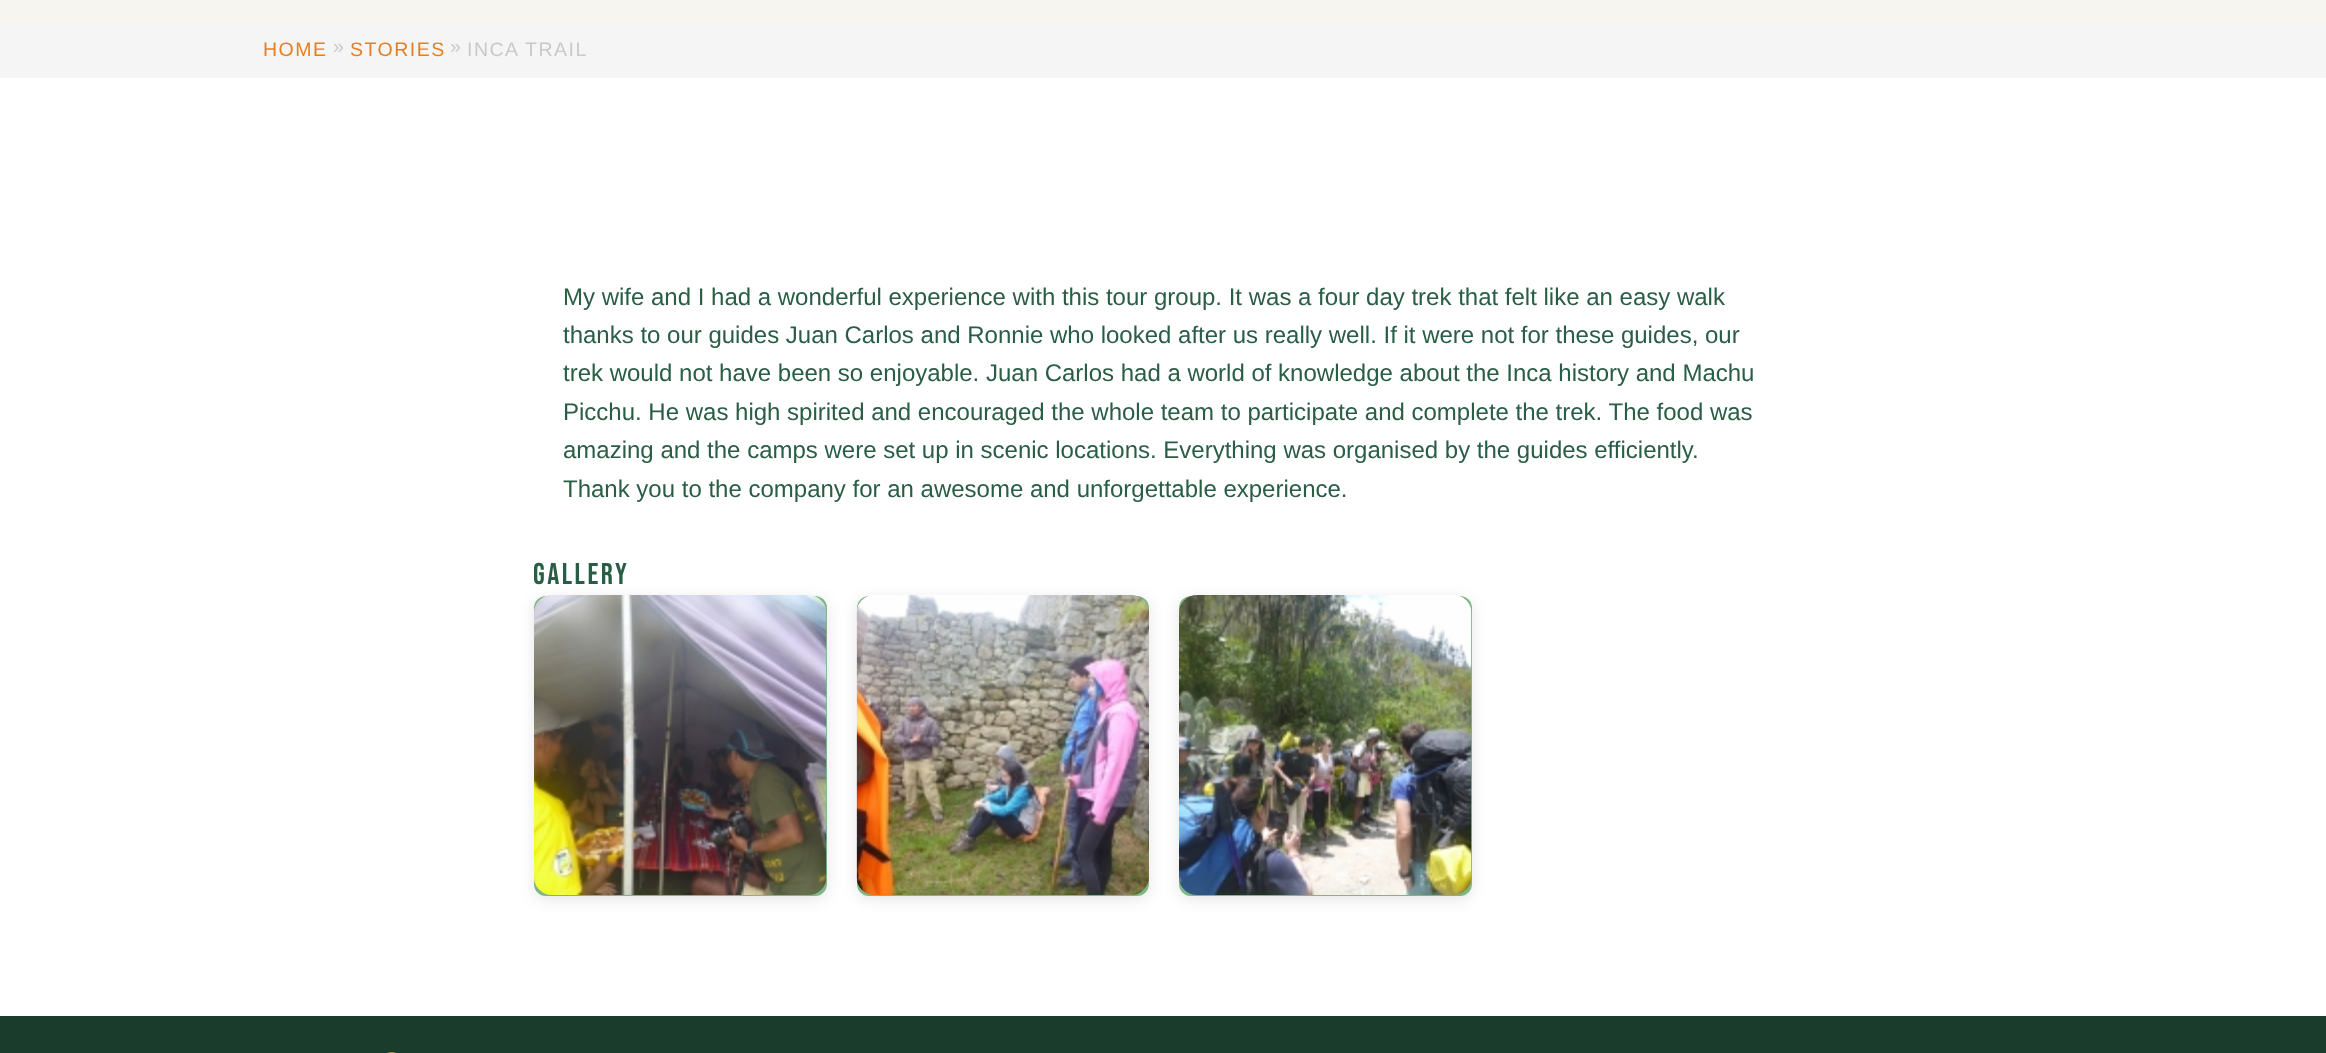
<?xml version="1.0" encoding="UTF-8"?>
<svg xmlns="http://www.w3.org/2000/svg" width="2326" height="1053">
    <defs>
        <filter id="blur1" x="-50%" y="-200%" width="200%" height="500%"><feGaussianBlur stdDeviation="7.5"/></filter>
    </defs>
    <rect width="100%" height="100%" fill="#FFFFFF"/>
    <rect x="0" y="0" width="2326" height="24" fill="#F7F5F0"/>
    <rect x="0" y="24" width="2326" height="54" fill="#F5F5F5"/>
    <text x="263" y="56" font-family="Liberation Sans" font-size="19.5" letter-spacing="1.5" fill="#E67E22">HOME</text>
    <text x="333" y="53" font-family="Liberation Sans" font-size="19.5" letter-spacing="1.5" fill="#C9C9C7">»</text>
    <text x="350" y="56" font-family="Liberation Sans" font-size="19.5" letter-spacing="1.5" fill="#E67E22">STORIES</text>
    <text x="450" y="53" font-family="Liberation Sans" font-size="19.5" letter-spacing="1.5" fill="#C9C9C7">»</text>
    <text x="467" y="56" font-family="Liberation Sans" font-size="19.5" letter-spacing="1.5" fill="#C9C9C7">INCA TRAIL</text>
    <text font-family="Liberation Sans" font-size="24" fill="#2A5D45">
        <tspan x="563" y="305">My wife and I had a wonderful experience with this tour group. It was a four day trek that felt like an easy walk</tspan>
        <tspan x="563" y="343">thanks to our guides Juan Carlos and Ronnie who looked after us really well. If it were not for these guides, our</tspan>
        <tspan x="563" y="381">trek would not have been so enjoyable. Juan Carlos had a world of knowledge about the Inca history and Machu</tspan>
        <tspan x="563" y="420">Picchu. He was high spirited and encouraged the whole team to participate and complete the trek. The food was</tspan>
        <tspan x="563" y="458">amazing and the camps were set up in scenic locations. Everything was organised by the guides efficiently.</tspan>
        <tspan x="563" y="497">Thank you to the company for an awesome and unforgettable experience.</tspan>
    </text>
    <text x="533" y="584" font-family="Bebas Neue" font-size="30" letter-spacing="2.5" fill="#2A5D45">Gallery</text>
    <rect x="534" y="599" width="293" height="300" rx="12" fill="#000000" fill-opacity="0.1" filter="url(#blur1)"/>
    <rect x="534" y="596" width="293" height="300" rx="12" fill="#7FB685"/>
    <image x="534" y="595" width="293" height="300" href="img_01.png"/>
    <rect x="857" y="599" width="292" height="300" rx="12" fill="#000000" fill-opacity="0.1" filter="url(#blur1)"/>
    <rect x="857" y="596" width="292" height="300" rx="12" fill="#7FB685"/>
    <image x="856" y="595" width="293" height="300" href="img_02.png"/>
    <rect x="1179" y="599" width="293" height="300" rx="12" fill="#000000" fill-opacity="0.1" filter="url(#blur1)"/>
    <rect x="1179" y="596" width="293" height="300" rx="12" fill="#7FB685"/>
    <image x="1179" y="595" width="293" height="300" href="img_03.png"/>
    <rect x="0" y="1016" width="2326" height="37" fill="#1A3C2C"/>
    <image x="387" y="1052" width="9" height="1" href="img_04.png"/>
</svg>
